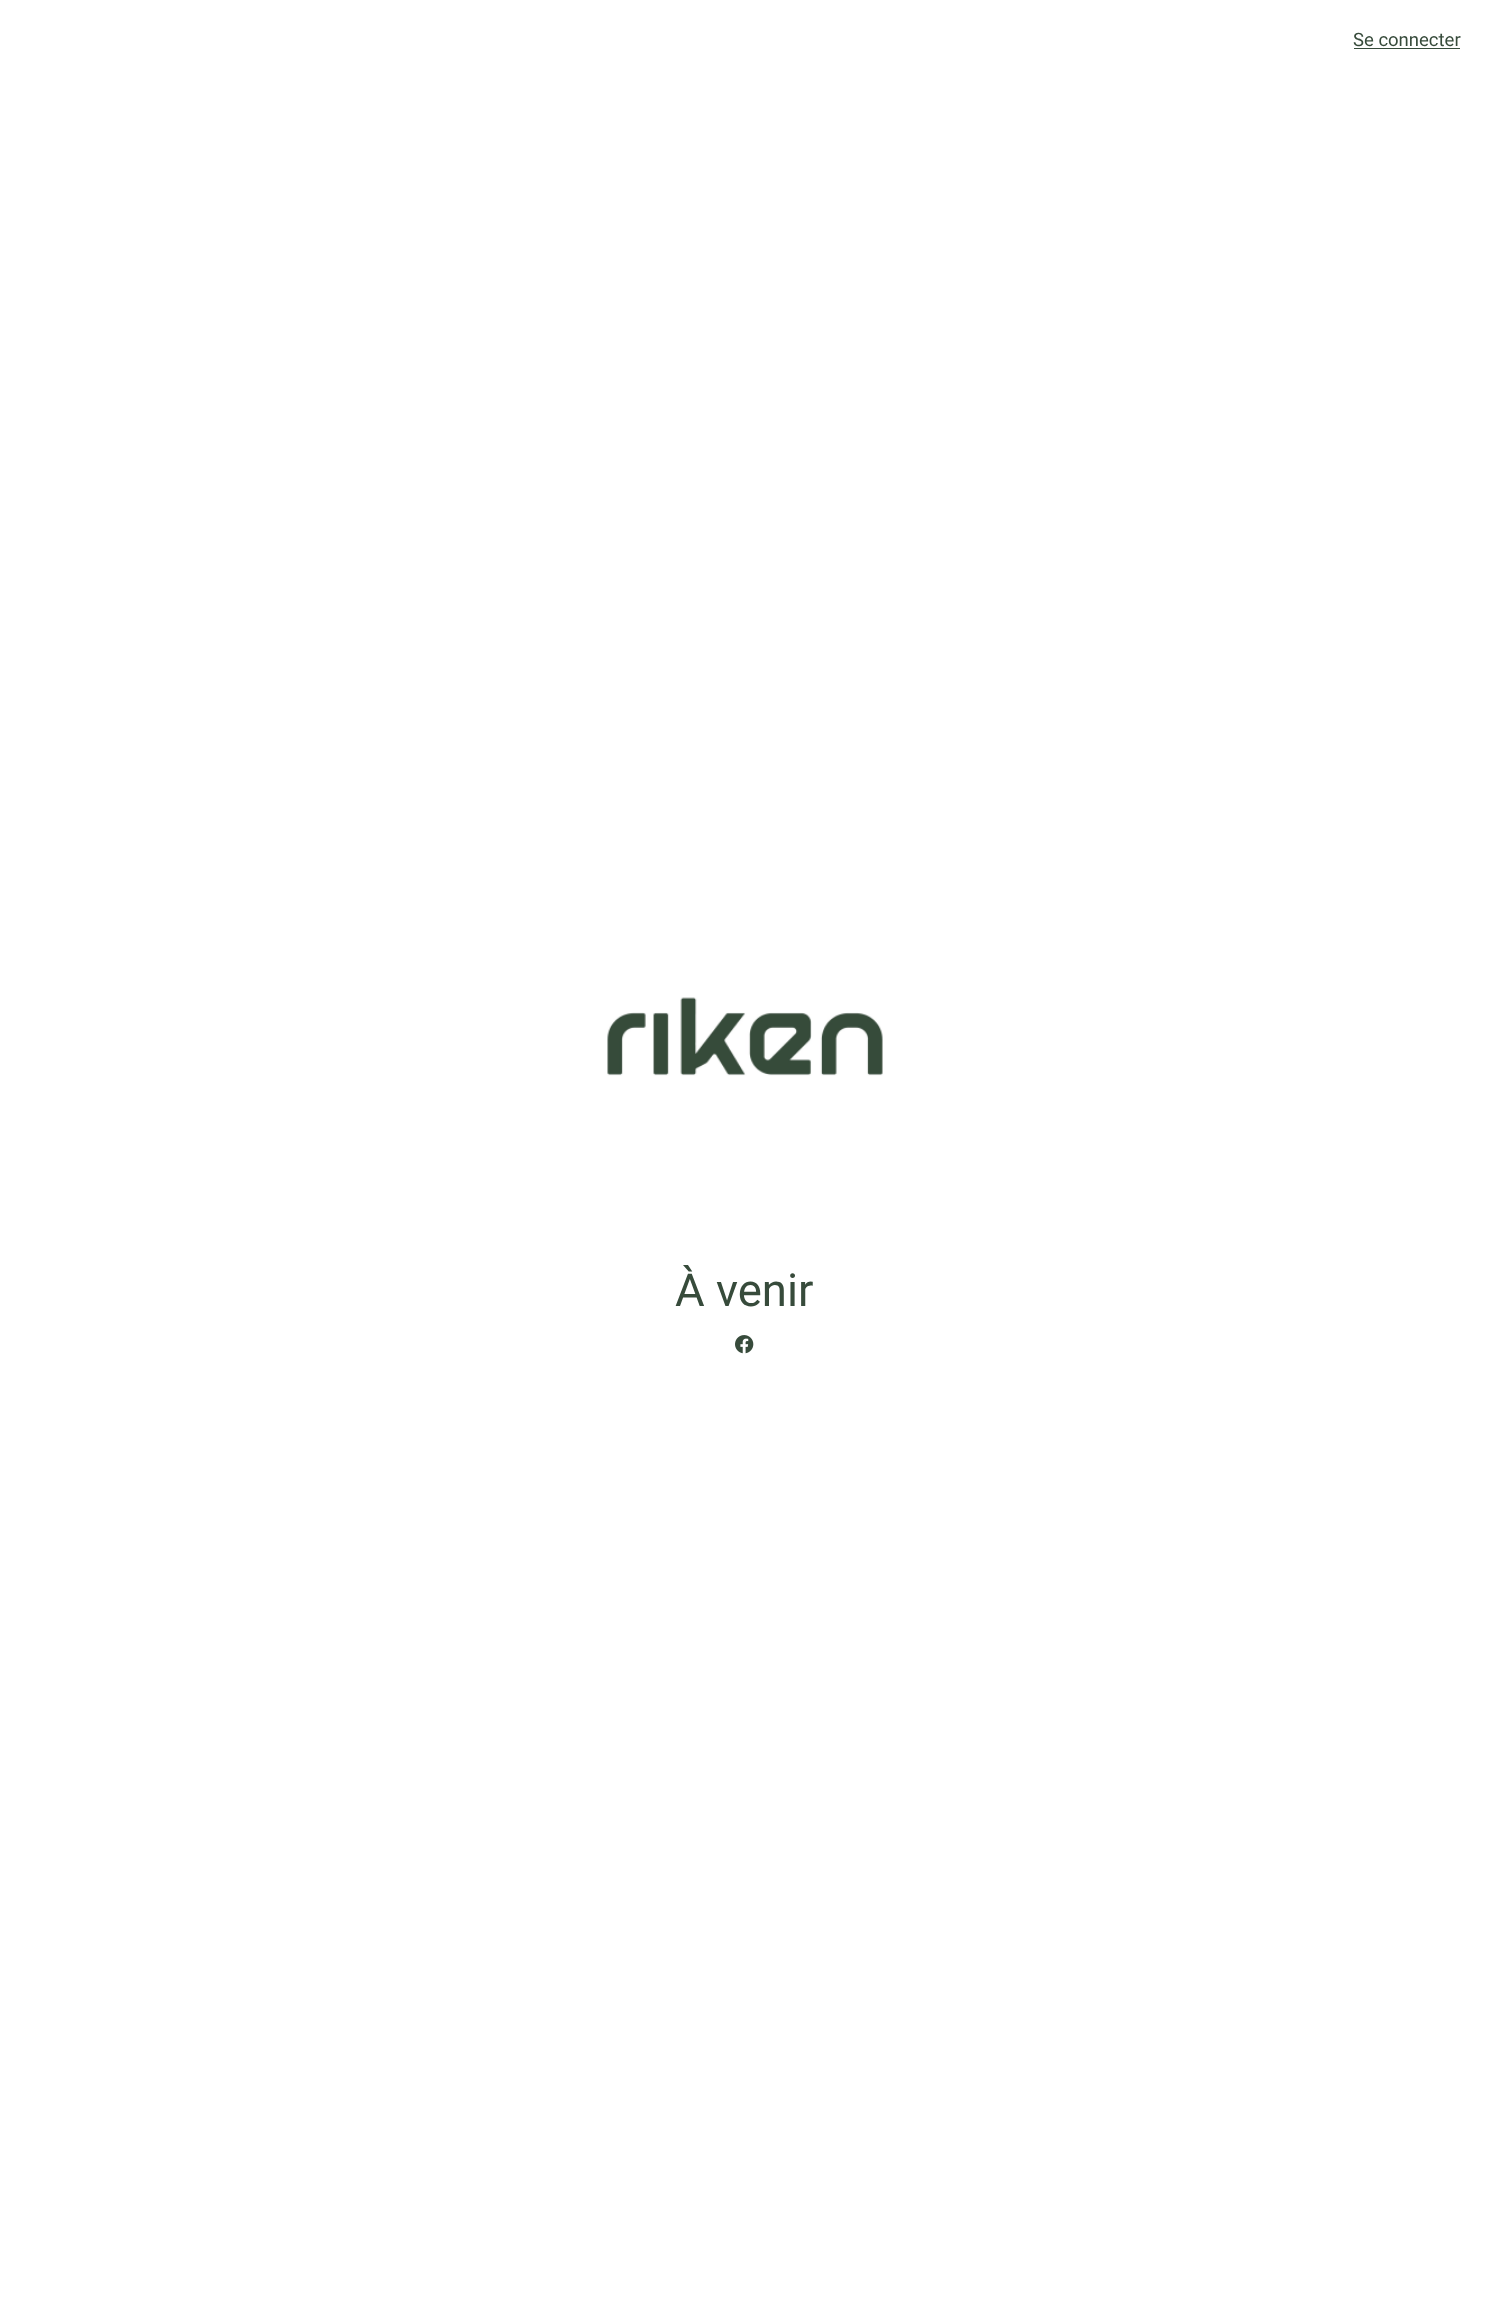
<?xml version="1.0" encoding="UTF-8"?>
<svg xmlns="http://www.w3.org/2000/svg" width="1488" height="2315">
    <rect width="100%" height="100%" fill="#FFFFFF"/>
    <text x="1353" y="46" font-family="Roboto" font-size="18.5" fill="#374B3B">Se connecter</text>
    <rect x="1354" y="48" width="106" height="1" fill="#374B3B"/>
    <image x="607" y="997" width="276" height="79" href="img_01.png"/>
    <text x="675" y="1306" font-family="Roboto" font-size="45.5" fill="#374B3B">À venir</text>
    <image x="735" y="1335" width="19" height="19" href="img_02.png"/>
</svg>
